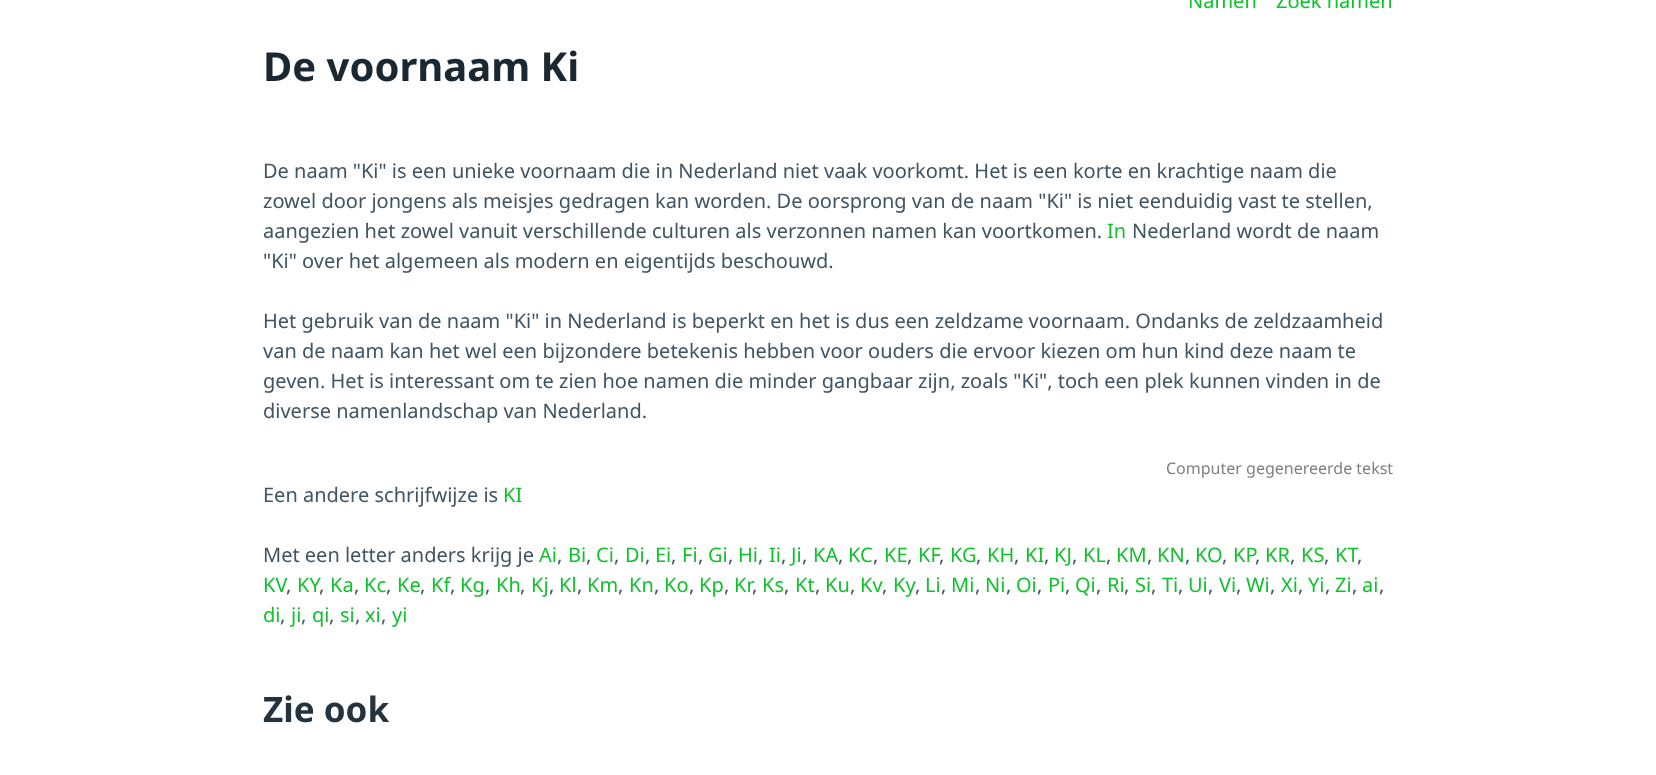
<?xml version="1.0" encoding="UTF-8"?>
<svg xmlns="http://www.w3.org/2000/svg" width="1656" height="775">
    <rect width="100%" height="100%" fill="#FFFFFF"/>
    <text x="1188" y="8" font-family="Noto Sans" font-size="20" fill="#10C12D">Namen</text>
    <text x="1276" y="8" font-family="Noto Sans" font-size="20" fill="#10C12D">Zoek namen</text>
    <text x="263" y="81" font-family="Noto Sans" font-size="40" font-weight="700" fill="#1B2832">De voornaam Ki</text>
    <text font-family="Noto Sans" font-size="20" fill="#415462">
        <tspan x="263" y="178">De naam "Ki" is een unieke voornaam die in Nederland niet vaak voorkomt. Het is een korte en krachtige naam die</tspan>
        <tspan x="263" y="208">zowel door jongens als meisjes gedragen kan worden. De oorsprong van de naam "Ki" is niet eenduidig vast te stellen,</tspan>
        <tspan x="263" y="238">aangezien het zowel vanuit verschillende culturen als verzonnen namen kan voortkomen.</tspan>
    </text>
    <text x="1107" y="238" font-family="Noto Sans" font-size="20" fill="#10C12D">In</text>
    <text x="1132" y="238" font-family="Noto Sans" font-size="20" fill="#415462">Nederland wordt de naam</text>
    <text x="263" y="268" font-family="Noto Sans" font-size="20" fill="#415462">"Ki" over het algemeen als modern en eigentijds beschouwd.</text>
    <text font-family="Noto Sans" font-size="20" fill="#415462">
        <tspan x="263" y="328">Het gebruik van de naam "Ki" in Nederland is beperkt en het is dus een zeldzame voornaam. Ondanks de zeldzaamheid</tspan>
        <tspan x="263" y="358">van de naam kan het wel een bijzondere betekenis hebben voor ouders die ervoor kiezen om hun kind deze naam te</tspan>
        <tspan x="263" y="388">geven. Het is interessant om te zien hoe namen die minder gangbaar zijn, zoals "Ki", toch een plek kunnen vinden in de</tspan>
        <tspan x="263" y="418">diverse namenlandschap van Nederland.</tspan>
    </text>
    <text x="1166" y="474" font-family="Noto Sans" font-size="16" fill="#808080">Computer gegenereerde tekst</text>
    <text x="263" y="502" font-family="Noto Sans" font-size="20" fill="#415462">Een andere schrijfwijze is</text>
    <text x="503" y="502" font-family="Noto Sans" font-size="20" fill="#10C12D">KI</text>
    <text x="263" y="562" font-family="Noto Sans" font-size="20" fill="#415462">Met een letter anders krijg je</text>
    <text x="539" y="562" font-family="Noto Sans" font-size="20" fill="#10C12D">Ai</text>
    <text x="557" y="562" font-family="Noto Sans" font-size="20" fill="#415462">,</text>
    <text x="568" y="562" font-family="Noto Sans" font-size="20" fill="#10C12D">Bi</text>
    <text x="586" y="562" font-family="Noto Sans" font-size="20" fill="#415462">,</text>
    <text x="596" y="562" font-family="Noto Sans" font-size="20" fill="#10C12D">Ci</text>
    <text x="614" y="562" font-family="Noto Sans" font-size="20" fill="#415462">,</text>
    <text x="625" y="562" font-family="Noto Sans" font-size="20" fill="#10C12D">Di</text>
    <text x="645" y="562" font-family="Noto Sans" font-size="20" fill="#415462">,</text>
    <text x="655" y="562" font-family="Noto Sans" font-size="20" fill="#10C12D">Ei</text>
    <text x="671" y="562" font-family="Noto Sans" font-size="20" fill="#415462">,</text>
    <text x="682" y="562" font-family="Noto Sans" font-size="20" fill="#10C12D">Fi</text>
    <text x="698" y="562" font-family="Noto Sans" font-size="20" fill="#415462">,</text>
    <text x="708" y="562" font-family="Noto Sans" font-size="20" fill="#10C12D">Gi</text>
    <text x="728" y="562" font-family="Noto Sans" font-size="20" fill="#415462">,</text>
    <text x="738" y="562" font-family="Noto Sans" font-size="20" fill="#10C12D">Hi</text>
    <text x="758" y="562" font-family="Noto Sans" font-size="20" fill="#415462">,</text>
    <text x="769" y="562" font-family="Noto Sans" font-size="20" fill="#10C12D">Ii</text>
    <text x="781" y="562" font-family="Noto Sans" font-size="20" fill="#415462">,</text>
    <text x="791" y="562" font-family="Noto Sans" font-size="20" fill="#10C12D">Ji</text>
    <text x="802" y="562" font-family="Noto Sans" font-size="20" fill="#415462">,</text>
    <text x="813" y="562" font-family="Noto Sans" font-size="20" fill="#10C12D">KA</text>
    <text x="838" y="562" font-family="Noto Sans" font-size="20" fill="#415462">,</text>
    <text x="848" y="562" font-family="Noto Sans" font-size="20" fill="#10C12D">KC</text>
    <text x="873" y="562" font-family="Noto Sans" font-size="20" fill="#415462">,</text>
    <text x="884" y="562" font-family="Noto Sans" font-size="20" fill="#10C12D">KE</text>
    <text x="907" y="562" font-family="Noto Sans" font-size="20" fill="#415462">,</text>
    <text x="918" y="562" font-family="Noto Sans" font-size="20" fill="#10C12D">KF</text>
    <text x="939" y="562" font-family="Noto Sans" font-size="20" fill="#415462">,</text>
    <text x="950" y="562" font-family="Noto Sans" font-size="20" fill="#10C12D">KG</text>
    <text x="976" y="562" font-family="Noto Sans" font-size="20" fill="#415462">,</text>
    <text x="987" y="562" font-family="Noto Sans" font-size="20" fill="#10C12D">KH</text>
    <text x="1014" y="562" font-family="Noto Sans" font-size="20" fill="#415462">,</text>
    <text x="1025" y="562" font-family="Noto Sans" font-size="20" fill="#10C12D">KI</text>
    <text x="1044" y="562" font-family="Noto Sans" font-size="20" fill="#415462">,</text>
    <text x="1054" y="562" font-family="Noto Sans" font-size="20" fill="#10C12D">KJ</text>
    <text x="1072" y="562" font-family="Noto Sans" font-size="20" fill="#415462">,</text>
    <text x="1083" y="562" font-family="Noto Sans" font-size="20" fill="#10C12D">KL</text>
    <text x="1106" y="562" font-family="Noto Sans" font-size="20" fill="#415462">,</text>
    <text x="1116" y="562" font-family="Noto Sans" font-size="20" fill="#10C12D">KM</text>
    <text x="1147" y="562" font-family="Noto Sans" font-size="20" fill="#415462">,</text>
    <text x="1157" y="562" font-family="Noto Sans" font-size="20" fill="#10C12D">KN</text>
    <text x="1185" y="562" font-family="Noto Sans" font-size="20" fill="#415462">,</text>
    <text x="1195" y="562" font-family="Noto Sans" font-size="20" fill="#10C12D">KO</text>
    <text x="1222" y="562" font-family="Noto Sans" font-size="20" fill="#415462">,</text>
    <text x="1233" y="562" font-family="Noto Sans" font-size="20" fill="#10C12D">KP</text>
    <text x="1265" y="562" font-family="Noto Sans" font-size="20" fill="#10C12D">KR</text>
    <text x="1301" y="562" font-family="Noto Sans" font-size="20" fill="#10C12D">KS</text>
    <text x="1335" y="562" font-family="Noto Sans" font-size="20" fill="#10C12D">KT</text>
    <text x="1255" y="562" font-family="Noto Sans" font-size="20" fill="#415462">,</text>
    <text x="1290" y="562" font-family="Noto Sans" font-size="20" fill="#415462">,</text>
    <text x="1324" y="562" font-family="Noto Sans" font-size="20" fill="#415462">,</text>
    <text x="1357" y="562" font-family="Noto Sans" font-size="20" fill="#415462">,</text>
    <text x="263" y="592" font-family="Noto Sans" font-size="20" fill="#10C12D">KV</text>
    <text x="286" y="592" font-family="Noto Sans" font-size="20" fill="#415462">,</text>
    <text x="297" y="592" font-family="Noto Sans" font-size="20" fill="#10C12D">KY</text>
    <text x="319" y="592" font-family="Noto Sans" font-size="20" fill="#415462">,</text>
    <text x="330" y="592" font-family="Noto Sans" font-size="20" fill="#10C12D">Ka</text>
    <text x="354" y="592" font-family="Noto Sans" font-size="20" fill="#415462">,</text>
    <text x="364" y="592" font-family="Noto Sans" font-size="20" fill="#10C12D">Kc</text>
    <text x="386" y="592" font-family="Noto Sans" font-size="20" fill="#415462">,</text>
    <text x="397" y="592" font-family="Noto Sans" font-size="20" fill="#10C12D">Ke</text>
    <text x="420" y="592" font-family="Noto Sans" font-size="20" fill="#415462">,</text>
    <text x="431" y="592" font-family="Noto Sans" font-size="20" fill="#10C12D">Kf</text>
    <text x="460" y="592" font-family="Noto Sans" font-size="20" fill="#10C12D">Kg</text>
    <text x="496" y="592" font-family="Noto Sans" font-size="20" fill="#10C12D">Kh</text>
    <text x="531" y="592" font-family="Noto Sans" font-size="20" fill="#10C12D">Kj</text>
    <text x="559" y="592" font-family="Noto Sans" font-size="20" fill="#10C12D">Kl</text>
    <text x="587" y="592" font-family="Noto Sans" font-size="20" fill="#10C12D">Km</text>
    <text x="629" y="592" font-family="Noto Sans" font-size="20" fill="#10C12D">Kn</text>
    <text x="664" y="592" font-family="Noto Sans" font-size="20" fill="#10C12D">Ko</text>
    <text x="699" y="592" font-family="Noto Sans" font-size="20" fill="#10C12D">Kp</text>
    <text x="734" y="592" font-family="Noto Sans" font-size="20" fill="#10C12D">Kr</text>
    <text x="762" y="592" font-family="Noto Sans" font-size="20" fill="#10C12D">Ks</text>
    <text x="795" y="592" font-family="Noto Sans" font-size="20" fill="#10C12D">Kt</text>
    <text x="825" y="592" font-family="Noto Sans" font-size="20" fill="#10C12D">Ku</text>
    <text x="860" y="592" font-family="Noto Sans" font-size="20" fill="#10C12D">Kv</text>
    <text x="893" y="592" font-family="Noto Sans" font-size="20" fill="#10C12D">Ky</text>
    <text x="925" y="592" font-family="Noto Sans" font-size="20" fill="#10C12D">Li</text>
    <text x="951" y="592" font-family="Noto Sans" font-size="20" fill="#10C12D">Mi</text>
    <text x="985" y="592" font-family="Noto Sans" font-size="20" fill="#10C12D">Ni</text>
    <text x="1016" y="592" font-family="Noto Sans" font-size="20" fill="#10C12D">Oi</text>
    <text x="1048" y="592" font-family="Noto Sans" font-size="20" fill="#10C12D">Pi</text>
    <text x="1075" y="592" font-family="Noto Sans" font-size="20" fill="#10C12D">Qi</text>
    <text x="1107" y="592" font-family="Noto Sans" font-size="20" fill="#10C12D">Ri</text>
    <text x="1135" y="592" font-family="Noto Sans" font-size="20" fill="#10C12D">Si</text>
    <text x="1162" y="592" font-family="Noto Sans" font-size="20" fill="#10C12D">Ti</text>
    <text x="1188" y="592" font-family="Noto Sans" font-size="20" fill="#10C12D">Ui</text>
    <text x="1219" y="592" font-family="Noto Sans" font-size="20" fill="#10C12D">Vi</text>
    <text x="1246" y="592" font-family="Noto Sans" font-size="20" fill="#10C12D">Wi</text>
    <text x="1281" y="592" font-family="Noto Sans" font-size="20" fill="#10C12D">Xi</text>
    <text x="1308" y="592" font-family="Noto Sans" font-size="20" fill="#10C12D">Yi</text>
    <text x="1335" y="592" font-family="Noto Sans" font-size="20" fill="#10C12D">Zi</text>
    <text x="1362" y="592" font-family="Noto Sans" font-size="20" fill="#10C12D">ai</text>
    <text x="450" y="592" font-family="Noto Sans" font-size="20" fill="#415462">,</text>
    <text x="485" y="592" font-family="Noto Sans" font-size="20" fill="#415462">,</text>
    <text x="520" y="592" font-family="Noto Sans" font-size="20" fill="#415462">,</text>
    <text x="549" y="592" font-family="Noto Sans" font-size="20" fill="#415462">,</text>
    <text x="577" y="592" font-family="Noto Sans" font-size="20" fill="#415462">,</text>
    <text x="618" y="592" font-family="Noto Sans" font-size="20" fill="#415462">,</text>
    <text x="654" y="592" font-family="Noto Sans" font-size="20" fill="#415462">,</text>
    <text x="689" y="592" font-family="Noto Sans" font-size="20" fill="#415462">,</text>
    <text x="724" y="592" font-family="Noto Sans" font-size="20" fill="#415462">,</text>
    <text x="752" y="592" font-family="Noto Sans" font-size="20" fill="#415462">,</text>
    <text x="784" y="592" font-family="Noto Sans" font-size="20" fill="#415462">,</text>
    <text x="815" y="592" font-family="Noto Sans" font-size="20" fill="#415462">,</text>
    <text x="850" y="592" font-family="Noto Sans" font-size="20" fill="#415462">,</text>
    <text x="882" y="592" font-family="Noto Sans" font-size="20" fill="#415462">,</text>
    <text x="915" y="592" font-family="Noto Sans" font-size="20" fill="#415462">,</text>
    <text x="941" y="592" font-family="Noto Sans" font-size="20" fill="#415462">,</text>
    <text x="975" y="592" font-family="Noto Sans" font-size="20" fill="#415462">,</text>
    <text x="1006" y="592" font-family="Noto Sans" font-size="20" fill="#415462">,</text>
    <text x="1037" y="592" font-family="Noto Sans" font-size="20" fill="#415462">,</text>
    <text x="1065" y="592" font-family="Noto Sans" font-size="20" fill="#415462">,</text>
    <text x="1096" y="592" font-family="Noto Sans" font-size="20" fill="#415462">,</text>
    <text x="1124" y="592" font-family="Noto Sans" font-size="20" fill="#415462">,</text>
    <text x="1151" y="592" font-family="Noto Sans" font-size="20" fill="#415462">,</text>
    <text x="1178" y="592" font-family="Noto Sans" font-size="20" fill="#415462">,</text>
    <text x="1208" y="592" font-family="Noto Sans" font-size="20" fill="#415462">,</text>
    <text x="1236" y="592" font-family="Noto Sans" font-size="20" fill="#415462">,</text>
    <text x="1270" y="592" font-family="Noto Sans" font-size="20" fill="#415462">,</text>
    <text x="1298" y="592" font-family="Noto Sans" font-size="20" fill="#415462">,</text>
    <text x="1325" y="592" font-family="Noto Sans" font-size="20" fill="#415462">,</text>
    <text x="1352" y="592" font-family="Noto Sans" font-size="20" fill="#415462">,</text>
    <text x="1379" y="592" font-family="Noto Sans" font-size="20" fill="#415462">,</text>
    <text x="263" y="622" font-family="Noto Sans" font-size="20" fill="#10C12D">di</text>
    <text x="280" y="622" font-family="Noto Sans" font-size="20" fill="#415462">,</text>
    <text x="291" y="622" font-family="Noto Sans" font-size="20" fill="#10C12D">ji</text>
    <text x="301" y="622" font-family="Noto Sans" font-size="20" fill="#415462">,</text>
    <text x="312" y="622" font-family="Noto Sans" font-size="20" fill="#10C12D">qi</text>
    <text x="329" y="622" font-family="Noto Sans" font-size="20" fill="#415462">,</text>
    <text x="340" y="622" font-family="Noto Sans" font-size="20" fill="#10C12D">si</text>
    <text x="355" y="622" font-family="Noto Sans" font-size="20" fill="#415462">,</text>
    <text x="365" y="622" font-family="Noto Sans" font-size="20" fill="#10C12D">xi</text>
    <text x="381" y="622" font-family="Noto Sans" font-size="20" fill="#415462">,</text>
    <text x="392" y="622" font-family="Noto Sans" font-size="20" fill="#10C12D">yi</text>
    <text x="263" y="722" font-family="Noto Sans" font-size="35" font-weight="700" fill="#24333E">Zie ook</text>
</svg>
